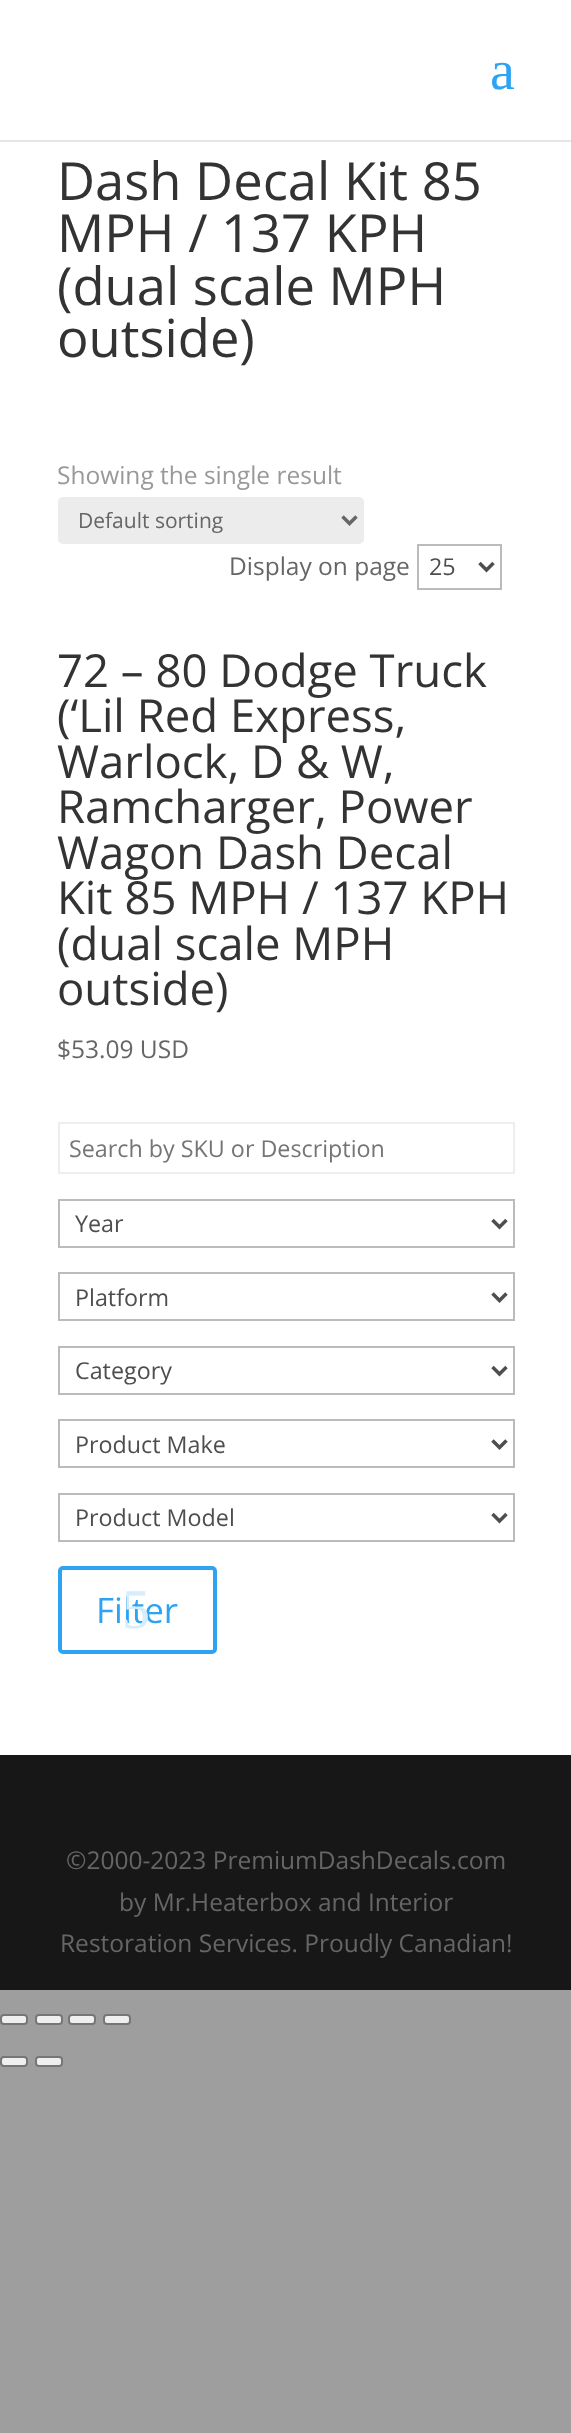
<?xml version="1.0" encoding="UTF-8"?>
<svg xmlns="http://www.w3.org/2000/svg" width="571" height="2433">
    <rect width="100%" height="100%" fill="#9E9E9E"/>
    <rect x="0" y="0" width="571" height="1755" fill="#FFFFFF"/>
    <rect x="0" y="140" width="571" height="2" fill="#000000" fill-opacity="0.1"/>
    <text x="490" y="89" font-family="Liberation Serif" font-size="56" fill="#2EA3F2">a</text>
    <text font-family="Open Sans" font-size="52.5" fill="#333333">
        <tspan x="57" y="200">Dash Decal Kit 85</tspan>
        <tspan x="57" y="252">MPH / 137 KPH</tspan>
        <tspan x="57" y="305">(dual scale MPH</tspan>
        <tspan x="57" y="357">outside)</tspan>
    </text>
    <text x="57" y="484" font-family="Open Sans" font-size="24.5" fill="#999999">Showing the single result</text>
    <rect x="58" y="497" width="306" height="47" rx="5" fill="#ECECEC"/>
    <path d="M 342.5 516.5 L 349.5 523.5 L 356.5 516.5" fill="none" stroke="#666666" stroke-width="3.5"/>
    <text x="78" y="528" font-family="Open Sans" font-size="21" fill="#666666">Default sorting</text>
    <text x="229" y="575" font-family="Open Sans" font-size="24.5" fill="#666666">Display on page</text>
    <rect x="418" y="545" width="83" height="44" fill="none" stroke="#BBBBBB" stroke-width="2"/>
    <path d="M 479.5 563 L 486.5 570 L 493.5 563" fill="none" stroke="#4E4E4E" stroke-width="3.5"/>
    <text x="429" y="575" font-family="Open Sans" font-size="23.3" fill="#4E4E4E">25</text>
    <text font-family="Open Sans" font-size="45.5" fill="#333333">
        <tspan x="57" y="687">72 – 80 Dodge Truck</tspan>
        <tspan x="57" y="732">(‘Lil Red Express,</tspan>
        <tspan x="57" y="778">Warlock, D &amp; W,</tspan>
        <tspan x="57" y="823">Ramcharger, Power</tspan>
        <tspan x="57" y="869">Wagon Dash Decal</tspan>
        <tspan x="57" y="914">Kit 85 MPH / 137 KPH</tspan>
        <tspan x="57" y="960">(dual scale MPH</tspan>
        <tspan x="57" y="1005">outside)</tspan>
    </text>
    <text x="57" y="1058" font-family="Open Sans" font-size="24.5" fill="#666666">$53.09 USD</text>
    <rect x="59" y="1123" width="455" height="50" fill="none" stroke="#EEEEEE" stroke-width="2"/>
    <text x="69" y="1157" font-family="Open Sans" font-size="23.3" fill="#757575">Search by SKU or Description</text>
    <rect x="59" y="1200" width="455" height="47" fill="none" stroke="#BBBBBB" stroke-width="2"/>
    <path d="M 492.5 1220 L 499.5 1227 L 506.5 1220" fill="none" stroke="#4E4E4E" stroke-width="3.5"/>
    <text x="75" y="1232" font-family="Open Sans" font-size="23.3" fill="#4E4E4E">Year</text>
    <rect x="59" y="1273" width="455" height="47" fill="none" stroke="#BBBBBB" stroke-width="2"/>
    <path d="M 492.5 1293.5 L 499.5 1300.5 L 506.5 1293.5" fill="none" stroke="#4E4E4E" stroke-width="3.5"/>
    <text x="75" y="1306" font-family="Open Sans" font-size="23.3" fill="#4E4E4E">Platform</text>
    <rect x="59" y="1347" width="455" height="47" fill="none" stroke="#BBBBBB" stroke-width="2"/>
    <path d="M 492.5 1367 L 499.5 1374 L 506.5 1367" fill="none" stroke="#4E4E4E" stroke-width="3.5"/>
    <text x="75" y="1379" font-family="Open Sans" font-size="23.3" fill="#4E4E4E">Category</text>
    <rect x="59" y="1420" width="455" height="47" fill="none" stroke="#BBBBBB" stroke-width="2"/>
    <path d="M 492.5 1440.5 L 499.5 1447.5 L 506.5 1440.5" fill="none" stroke="#4E4E4E" stroke-width="3.5"/>
    <text x="75" y="1453" font-family="Open Sans" font-size="23.3" fill="#4E4E4E">Product Make</text>
    <rect x="59" y="1494" width="455" height="47" fill="none" stroke="#BBBBBB" stroke-width="2"/>
    <path d="M 492.5 1514 L 499.5 1521 L 506.5 1514" fill="none" stroke="#4E4E4E" stroke-width="3.5"/>
    <text x="75" y="1526" font-family="Open Sans" font-size="23.3" fill="#4E4E4E">Product Model</text>
    <rect x="60" y="1568" width="155" height="84" rx="3" fill="none" stroke="#2EA3F2" stroke-width="4"/>
    <text x="96" y="1623" font-family="Open Sans" font-size="35" fill="#2EA3F2">Filter</text>
    <text x="122" y="1628" font-family="Liberation Serif" font-size="56" fill="#D5EDFC">5</text>
    <rect x="0" y="1755" width="571" height="235" fill="#171717"/>
    <text x="66" y="1869" font-family="Open Sans" font-size="24.5" fill="#666666">©2000-2023 PremiumDashDecals.com</text>
    <text x="119" y="1911" font-family="Open Sans" font-size="24.5" fill="#666666">by Mr.Heaterbox and Interior</text>
    <text x="60" y="1952" font-family="Open Sans" font-size="24.5" fill="#666666">Restoration Services. Proudly Canadian!</text>
    <rect x="1" y="2015" width="26" height="9" rx="3" fill="#EFEFEF" stroke="#767676" stroke-width="2"/>
    <rect x="36" y="2015" width="26" height="9" rx="3" fill="#EFEFEF" stroke="#767676" stroke-width="2"/>
    <rect x="69" y="2015" width="26" height="9" rx="3" fill="#EFEFEF" stroke="#767676" stroke-width="2"/>
    <rect x="104" y="2015" width="26" height="9" rx="3" fill="#EFEFEF" stroke="#767676" stroke-width="2"/>
    <rect x="1" y="2057" width="26" height="9" rx="3" fill="#EFEFEF" stroke="#767676" stroke-width="2"/>
    <rect x="36" y="2057" width="26" height="9" rx="3" fill="#EFEFEF" stroke="#767676" stroke-width="2"/>
</svg>
